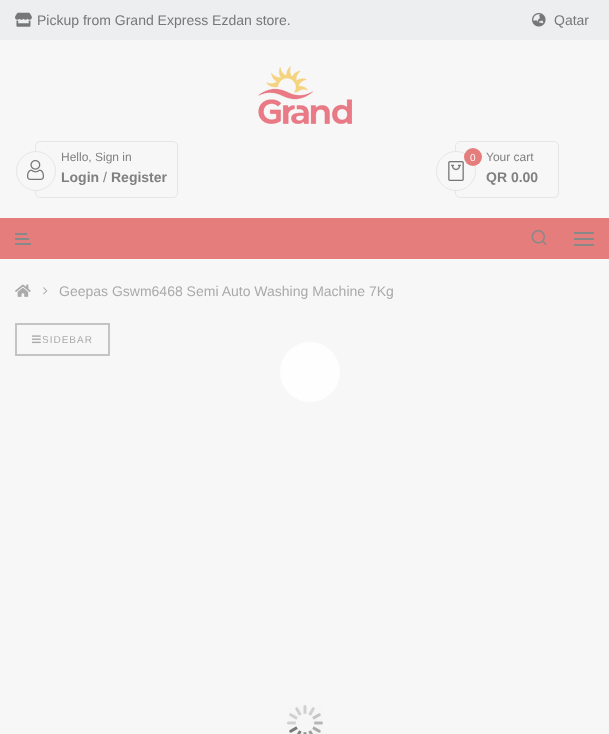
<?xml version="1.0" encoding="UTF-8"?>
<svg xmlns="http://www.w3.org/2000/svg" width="609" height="734">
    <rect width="100%" height="100%" fill="#F7F7F7"/>
    <rect x="0" y="0" width="609" height="40" fill="#ECEEF0"/>
    <image x="15" y="12" width="17" height="15" href="img_01.png"/>
    <text x="37" y="25" font-family="Liberation Sans" font-size="14" fill="#777777">Pickup from Grand Express Ezdan store.</text>
    <image x="532" y="13" width="14" height="14" href="img_02.png"/>
    <text x="554" y="25" font-family="Liberation Sans" font-size="14" fill="#777777">Qatar</text>
    <image x="258" y="66" width="94" height="58" href="img_03.png"/>
    <rect x="35.5" y="141.5" width="142" height="56" rx="4.5" fill="none" stroke="#E6E6E6"/>
    <circle cx="36" cy="171" r="20" fill="#F7F7F7"/>
    <image x="27" y="160" width="17" height="20" href="img_04.png"/>
    <circle cx="36" cy="171" r="19.5" fill="none" stroke="#E6E6E6"/>
    <text x="61" y="161" font-family="Liberation Sans" font-size="12" fill="#808080">Hello, Sign in</text>
    <text x="61" y="182" font-family="Liberation Sans" font-size="14" font-weight="700" fill="#808080">Login</text>
    <text x="103" y="182" font-family="Liberation Sans" font-size="14" fill="#808080">/</text>
    <text x="111" y="182" font-family="Liberation Sans" font-size="14" font-weight="700" fill="#808080">Register</text>
    <rect x="455.5" y="141.5" width="103" height="56" rx="4.5" fill="none" stroke="#E6E6E6"/>
    <circle cx="456" cy="171" r="20" fill="#F7F7F7"/>
    <image x="448" y="161" width="16" height="20" href="img_05.png"/>
    <circle cx="456" cy="171" r="19.5" fill="none" stroke="#E6E6E6"/>
    <text x="486" y="161" font-family="Liberation Sans" font-size="12" fill="#808080">Your cart</text>
    <circle cx="473" cy="157" r="9" fill="#E57D7D"/>
    <text x="470" y="161" font-family="Liberation Sans" font-size="10" fill="#F7F7F7">0</text>
    <text x="486" y="182" font-family="Liberation Sans" font-size="14" font-weight="700" fill="#808080">QR 0.00</text>
    <rect x="0" y="218" width="609" height="41" fill="#E57D7D"/>
    <image x="531" y="230" width="16" height="15" href="img_06.png"/>
    <rect x="15" y="233" width="12" height="2" fill="#888888"/>
    <rect x="15" y="238" width="14" height="2" fill="#888888"/>
    <rect x="15" y="243" width="16" height="2" fill="#888888"/>
    <rect x="574" y="232" width="20" height="2" fill="#888888"/>
    <rect x="574" y="238" width="20" height="2" fill="#888888"/>
    <rect x="574" y="244" width="20" height="2" fill="#888888"/>
    <image x="15" y="284" width="16" height="13" href="img_07.png"/>
    <image x="43" y="287" width="5" height="8" href="img_08.png"/>
    <text x="59" y="296" font-family="Liberation Sans" font-size="14" fill="#AAAAAA">Geepas Gswm6468 Semi Auto Washing Machine 7Kg</text>
    <rect x="16" y="324" width="93" height="31" fill="none" stroke="#C4C4C4" stroke-width="2"/>
    <image x="32" y="335" width="9" height="9" href="img_09.png"/>
    <text x="42" y="343" font-family="Liberation Sans" font-size="10" letter-spacing="1" fill="#AAAAAA">SIDEBAR</text>
    <image x="287" y="705" width="36" height="29" href="img_10.png"/>
    <circle cx="310" cy="372" r="30" fill="#FEFEFE"/>
</svg>
